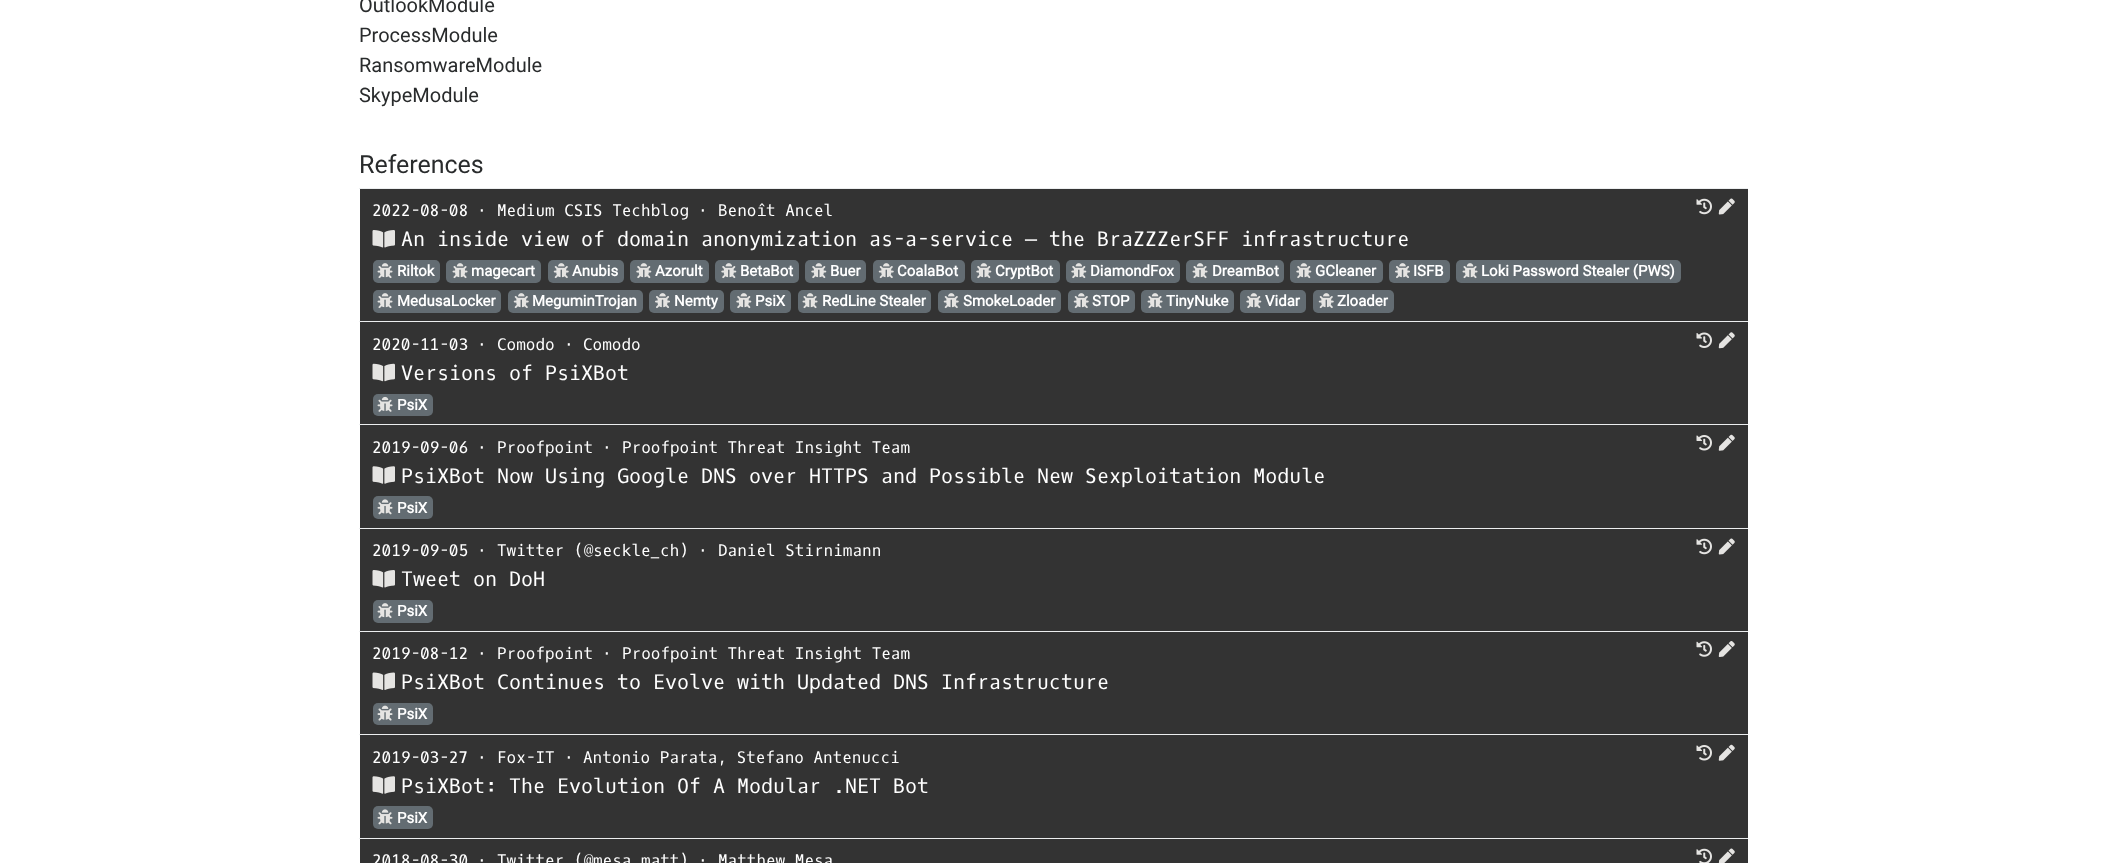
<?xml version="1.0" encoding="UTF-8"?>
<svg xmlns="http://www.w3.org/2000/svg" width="2106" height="863">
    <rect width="100%" height="100%" fill="#FFFFFF"/>
    <text font-family="Roboto" font-size="20" fill="#292B2C">
        <tspan x="359" y="12">OutlookModule</tspan>
        <tspan x="359" y="42">ProcessModule</tspan>
        <tspan x="359" y="72">RansomwareModule</tspan>
        <tspan x="359" y="102">SkypeModule</tspan>
    </text>
    <text x="359" y="173" font-family="Roboto" font-size="25" fill="#292B2C">References</text>
    <rect x="360" y="189" width="1388" height="132" fill="#333333"/>
    <rect x="359" y="188" width="1389" height="1" fill="#ECEEEF"/>
    <text x="372" y="216" font-family="Oxygen Mono" font-size="16" fill="#FFFFFF">2022-08-08</text>
    <text x="477" y="216" font-family="DejaVu Sans Mono" font-size="16" fill="#FFFFFF">⋅</text>
    <text x="497" y="216" font-family="Oxygen Mono" font-size="16" fill="#FFFFFF">Medium CSIS Techblog</text>
    <text x="698" y="216" font-family="DejaVu Sans Mono" font-size="16" fill="#FFFFFF">⋅</text>
    <text x="718" y="216" font-family="Oxygen Mono" font-size="16" fill="#FFFFFF">Benoît Ancel</text>
    <image x="1696" y="198" width="16" height="17" href="img_01.png"/>
    <image x="1718" y="198" width="17" height="17" href="img_02.png"/>
    <image x="372" y="230" width="23" height="18" href="img_03.png"/>
    <text x="401" y="246" font-family="Oxygen Mono" font-size="20" fill="#FFFFFF">An inside view of domain anonymization as-a-service — the BraZZZerSFF infrastructure</text>
    <rect x="373" y="260" width="67" height="23" rx="5" fill="#636C72"/>
    <image x="377" y="263" width="16" height="16" href="img_04.png"/>
    <text x="397" y="276" font-family="Roboto" font-size="15" font-weight="700" fill="#FFFFFF">Riltok</text>
    <rect x="446" y="260" width="95" height="23" rx="5" fill="#636C72"/>
    <image x="452" y="263" width="16" height="16" href="img_04.png"/>
    <text x="471" y="276" font-family="Roboto" font-size="15" font-weight="700" fill="#FFFFFF">magecart</text>
    <rect x="548" y="260" width="76" height="23" rx="5" fill="#636C72"/>
    <image x="553" y="263" width="16" height="16" href="img_05.png"/>
    <text x="572" y="276" font-family="Roboto" font-size="15" font-weight="700" fill="#FFFFFF">Anubis</text>
    <rect x="630" y="260" width="79" height="23" rx="5" fill="#636C72"/>
    <image x="636" y="263" width="16" height="16" href="img_06.png"/>
    <text x="655" y="276" font-family="Roboto" font-size="15" font-weight="700" fill="#FFFFFF">Azorult</text>
    <rect x="715" y="260" width="84" height="23" rx="5" fill="#636C72"/>
    <image x="721" y="263" width="16" height="16" href="img_06.png"/>
    <text x="740" y="276" font-family="Roboto" font-size="15" font-weight="700" fill="#FFFFFF">BetaBot</text>
    <rect x="805" y="260" width="61" height="23" rx="5" fill="#636C72"/>
    <image x="811" y="263" width="16" height="16" href="img_06.png"/>
    <text x="830" y="276" font-family="Roboto" font-size="15" font-weight="700" fill="#FFFFFF">Buer</text>
    <rect x="873" y="260" width="92" height="23" rx="5" fill="#636C72"/>
    <image x="878" y="263" width="16" height="16" href="img_05.png"/>
    <text x="897" y="276" font-family="Roboto" font-size="15" font-weight="700" fill="#FFFFFF">CoalaBot</text>
    <rect x="971" y="260" width="89" height="23" rx="5" fill="#636C72"/>
    <image x="976" y="263" width="16" height="16" href="img_06.png"/>
    <text x="995" y="276" font-family="Roboto" font-size="15" font-weight="700" fill="#FFFFFF">CryptBot</text>
    <rect x="1066" y="260" width="114" height="23" rx="5" fill="#636C72"/>
    <image x="1071" y="263" width="16" height="16" href="img_06.png"/>
    <text x="1090" y="276" font-family="Roboto" font-size="15" font-weight="700" fill="#FFFFFF">DiamondFox</text>
    <rect x="1186" y="260" width="98" height="23" rx="5" fill="#636C72"/>
    <image x="1192" y="263" width="16" height="16" href="img_04.png"/>
    <text x="1212" y="276" font-family="Roboto" font-size="15" font-weight="700" fill="#FFFFFF">DreamBot</text>
    <rect x="1290" y="260" width="93" height="23" rx="5" fill="#636C72"/>
    <image x="1296" y="263" width="16" height="16" href="img_06.png"/>
    <text x="1315" y="276" font-family="Roboto" font-size="15" font-weight="700" fill="#FFFFFF">GCleaner</text>
    <rect x="1389" y="260" width="61" height="23" rx="5" fill="#636C72"/>
    <image x="1395" y="263" width="15" height="16" href="img_07.png"/>
    <text x="1413" y="276" font-family="Roboto" font-size="15" font-weight="700" fill="#FFFFFF">ISFB</text>
    <rect x="1456" y="260" width="225" height="23" rx="5" fill="#636C72"/>
    <image x="1462" y="263" width="16" height="16" href="img_04.png"/>
    <text x="1481" y="276" font-family="Roboto" font-size="15" font-weight="700" fill="#FFFFFF">Loki Password Stealer (PWS)</text>
    <rect x="373" y="290" width="128" height="23" rx="5" fill="#636C72"/>
    <image x="377" y="293" width="16" height="16" href="img_04.png"/>
    <text x="397" y="306" font-family="Roboto" font-size="15" font-weight="700" fill="#FFFFFF">MedusaLocker</text>
    <rect x="508" y="290" width="135" height="23" rx="5" fill="#636C72"/>
    <image x="513" y="293" width="16" height="16" href="img_05.png"/>
    <text x="532" y="306" font-family="Roboto" font-size="15" font-weight="700" fill="#FFFFFF">MeguminTrojan</text>
    <rect x="649" y="290" width="75" height="23" rx="5" fill="#636C72"/>
    <image x="655" y="293" width="15" height="16" href="img_07.png"/>
    <text x="674" y="306" font-family="Roboto" font-size="15" font-weight="700" fill="#FFFFFF">Nemty</text>
    <rect x="730" y="290" width="61" height="23" rx="5" fill="#636C72"/>
    <image x="736" y="293" width="16" height="16" href="img_06.png"/>
    <text x="755" y="306" font-family="Roboto" font-size="15" font-weight="700" fill="#FFFFFF">PsiX</text>
    <rect x="798" y="290" width="133" height="23" rx="5" fill="#636C72"/>
    <image x="802" y="293" width="16" height="16" href="img_04.png"/>
    <text x="822" y="306" font-family="Roboto" font-size="15" font-weight="700" fill="#FFFFFF">RedLine Stealer</text>
    <rect x="938" y="290" width="123" height="23" rx="5" fill="#636C72"/>
    <image x="943" y="293" width="16" height="16" href="img_05.png"/>
    <text x="963" y="306" font-family="Roboto" font-size="15" font-weight="700" fill="#FFFFFF">SmokeLoader</text>
    <rect x="1068" y="290" width="67" height="23" rx="5" fill="#636C72"/>
    <image x="1073" y="293" width="16" height="16" href="img_05.png"/>
    <text x="1092" y="306" font-family="Roboto" font-size="15" font-weight="700" fill="#FFFFFF">STOP</text>
    <rect x="1141" y="290" width="93" height="23" rx="5" fill="#636C72"/>
    <image x="1147" y="293" width="16" height="16" href="img_04.png"/>
    <text x="1166" y="306" font-family="Roboto" font-size="15" font-weight="700" fill="#FFFFFF">TinyNuke</text>
    <rect x="1240" y="290" width="66" height="23" rx="5" fill="#636C72"/>
    <image x="1246" y="293" width="16" height="16" href="img_06.png"/>
    <text x="1265" y="306" font-family="Roboto" font-size="15" font-weight="700" fill="#FFFFFF">Vidar</text>
    <rect x="1313" y="290" width="81" height="23" rx="5" fill="#636C72"/>
    <image x="1318" y="293" width="16" height="16" href="img_05.png"/>
    <text x="1337" y="306" font-family="Roboto" font-size="15" font-weight="700" fill="#FFFFFF">Zloader</text>
    <rect x="360" y="322" width="1388" height="102" fill="#333333"/>
    <rect x="359" y="321" width="1389" height="1" fill="#ECEEEF"/>
    <text x="372" y="350" font-family="Oxygen Mono" font-size="16" fill="#FFFFFF">2020-11-03</text>
    <text x="477" y="350" font-family="DejaVu Sans Mono" font-size="16" fill="#FFFFFF">⋅</text>
    <text x="497" y="350" font-family="Oxygen Mono" font-size="16" fill="#FFFFFF">Comodo</text>
    <text x="564" y="350" font-family="DejaVu Sans Mono" font-size="16" fill="#FFFFFF">⋅</text>
    <text x="583" y="350" font-family="Oxygen Mono" font-size="16" fill="#FFFFFF">Comodo</text>
    <image x="1696" y="332" width="16" height="16" href="img_08.png"/>
    <image x="1718" y="332" width="17" height="17" href="img_09.png"/>
    <image x="372" y="363" width="23" height="19" href="img_10.png"/>
    <text x="401" y="380" font-family="Oxygen Mono" font-size="20" fill="#FFFFFF">Versions of PsiXBot</text>
    <rect x="373" y="394" width="60" height="22" rx="5" fill="#636C72"/>
    <image x="377" y="396" width="16" height="16" href="img_11.png"/>
    <text x="397" y="410" font-family="Roboto" font-size="15" font-weight="700" fill="#FFFFFF">PsiX</text>
    <rect x="360" y="425" width="1388" height="103" fill="#333333"/>
    <rect x="359" y="424" width="1389" height="1" fill="#ECEEEF"/>
    <text x="372" y="453" font-family="Oxygen Mono" font-size="16" fill="#FFFFFF">2019-09-06</text>
    <text x="477" y="453" font-family="DejaVu Sans Mono" font-size="16" fill="#FFFFFF">⋅</text>
    <text x="497" y="453" font-family="Oxygen Mono" font-size="16" fill="#FFFFFF">Proofpoint</text>
    <text x="602" y="453" font-family="DejaVu Sans Mono" font-size="16" fill="#FFFFFF">⋅</text>
    <text x="622" y="453" font-family="Oxygen Mono" font-size="16" fill="#FFFFFF">Proofpoint Threat Insight Team</text>
    <image x="1696" y="435" width="16" height="16" href="img_12.png"/>
    <image x="1718" y="434" width="17" height="17" href="img_13.png"/>
    <image x="372" y="466" width="23" height="18" href="img_14.png"/>
    <text x="401" y="483" font-family="Oxygen Mono" font-size="20" fill="#FFFFFF">PsiXBot Now Using Google DNS over HTTPS and Possible New Sexploitation Module</text>
    <rect x="373" y="496" width="60" height="23" rx="5" fill="#636C72"/>
    <image x="377" y="499" width="16" height="16" href="img_15.png"/>
    <text x="397" y="513" font-family="Roboto" font-size="15" font-weight="700" fill="#FFFFFF">PsiX</text>
    <rect x="360" y="529" width="1388" height="102" fill="#333333"/>
    <rect x="359" y="528" width="1389" height="1" fill="#ECEEEF"/>
    <text x="372" y="556" font-family="Oxygen Mono" font-size="16" fill="#FFFFFF">2019-09-05</text>
    <text x="477" y="556" font-family="DejaVu Sans Mono" font-size="16" fill="#FFFFFF">⋅</text>
    <text x="497" y="556" font-family="Oxygen Mono" font-size="16" fill="#FFFFFF">Twitter (@seckle_ch)</text>
    <text x="698" y="556" font-family="DejaVu Sans Mono" font-size="16" fill="#FFFFFF">⋅</text>
    <text x="718" y="556" font-family="Oxygen Mono" font-size="16" fill="#FFFFFF">Daniel Stirnimann</text>
    <image x="1696" y="538" width="16" height="17" href="img_01.png"/>
    <image x="1718" y="538" width="17" height="17" href="img_02.png"/>
    <image x="372" y="570" width="23" height="18" href="img_03.png"/>
    <text x="401" y="586" font-family="Oxygen Mono" font-size="20" fill="#FFFFFF">Tweet on DoH</text>
    <rect x="373" y="600" width="60" height="23" rx="5" fill="#636C72"/>
    <image x="377" y="603" width="16" height="16" href="img_04.png"/>
    <text x="397" y="616" font-family="Roboto" font-size="15" font-weight="700" fill="#FFFFFF">PsiX</text>
    <rect x="360" y="632" width="1388" height="102" fill="#333333"/>
    <rect x="359" y="631" width="1389" height="1" fill="#ECEEEF"/>
    <text x="372" y="659" font-family="Oxygen Mono" font-size="16" fill="#FFFFFF">2019-08-12</text>
    <text x="477" y="659" font-family="DejaVu Sans Mono" font-size="16" fill="#FFFFFF">⋅</text>
    <text x="497" y="659" font-family="Oxygen Mono" font-size="16" fill="#FFFFFF">Proofpoint</text>
    <text x="602" y="659" font-family="DejaVu Sans Mono" font-size="16" fill="#FFFFFF">⋅</text>
    <text x="622" y="659" font-family="Oxygen Mono" font-size="16" fill="#FFFFFF">Proofpoint Threat Insight Team</text>
    <image x="1696" y="641" width="16" height="16" href="img_16.png"/>
    <image x="1718" y="641" width="17" height="16" href="img_17.png"/>
    <image x="372" y="672" width="23" height="18" href="img_18.png"/>
    <text x="401" y="689" font-family="Oxygen Mono" font-size="20" fill="#FFFFFF">PsiXBot Continues to Evolve with Updated DNS Infrastructure</text>
    <rect x="373" y="703" width="60" height="22" rx="5" fill="#636C72"/>
    <image x="377" y="705" width="16" height="16" href="img_19.png"/>
    <text x="397" y="719" font-family="Roboto" font-size="15" font-weight="700" fill="#FFFFFF">PsiX</text>
    <rect x="360" y="735" width="1388" height="103" fill="#333333"/>
    <rect x="359" y="734" width="1389" height="1" fill="#ECEEEF"/>
    <text x="372" y="763" font-family="Oxygen Mono" font-size="16" fill="#FFFFFF">2019-03-27</text>
    <text x="477" y="763" font-family="DejaVu Sans Mono" font-size="16" fill="#FFFFFF">⋅</text>
    <text x="497" y="763" font-family="Oxygen Mono" font-size="16" fill="#FFFFFF">Fox-IT</text>
    <text x="564" y="763" font-family="DejaVu Sans Mono" font-size="16" fill="#FFFFFF">⋅</text>
    <text x="583" y="763" font-family="Oxygen Mono" font-size="16" fill="#FFFFFF">Antonio Parata, Stefano Antenucci</text>
    <image x="1696" y="745" width="16" height="16" href="img_12.png"/>
    <image x="1718" y="744" width="17" height="17" href="img_13.png"/>
    <image x="372" y="776" width="23" height="18" href="img_14.png"/>
    <text x="401" y="793" font-family="Oxygen Mono" font-size="20" fill="#FFFFFF">PsiXBot: The Evolution Of A Modular .NET Bot</text>
    <rect x="373" y="806" width="60" height="23" rx="5" fill="#636C72"/>
    <image x="377" y="809" width="16" height="16" href="img_15.png"/>
    <text x="397" y="823" font-family="Roboto" font-size="15" font-weight="700" fill="#FFFFFF">PsiX</text>
    <rect x="360" y="839" width="1388" height="24" fill="#333333"/>
    <rect x="359" y="838" width="1389" height="1" fill="#ECEEEF"/>
    <text x="372" y="866" font-family="Oxygen Mono" font-size="16" fill="#FFFFFF">2018-08-30</text>
    <text x="477" y="866" font-family="DejaVu Sans Mono" font-size="16" fill="#FFFFFF">⋅</text>
    <text x="497" y="866" font-family="Oxygen Mono" font-size="16" fill="#FFFFFF">Twitter (@mesa_matt)</text>
    <text x="698" y="866" font-family="DejaVu Sans Mono" font-size="16" fill="#FFFFFF">⋅</text>
    <text x="718" y="866" font-family="Oxygen Mono" font-size="16" fill="#FFFFFF">Matthew Mesa</text>
    <image x="1696" y="848" width="16" height="15" href="img_20.png"/>
    <image x="1718" y="848" width="17" height="15" href="img_21.png"/>
</svg>
